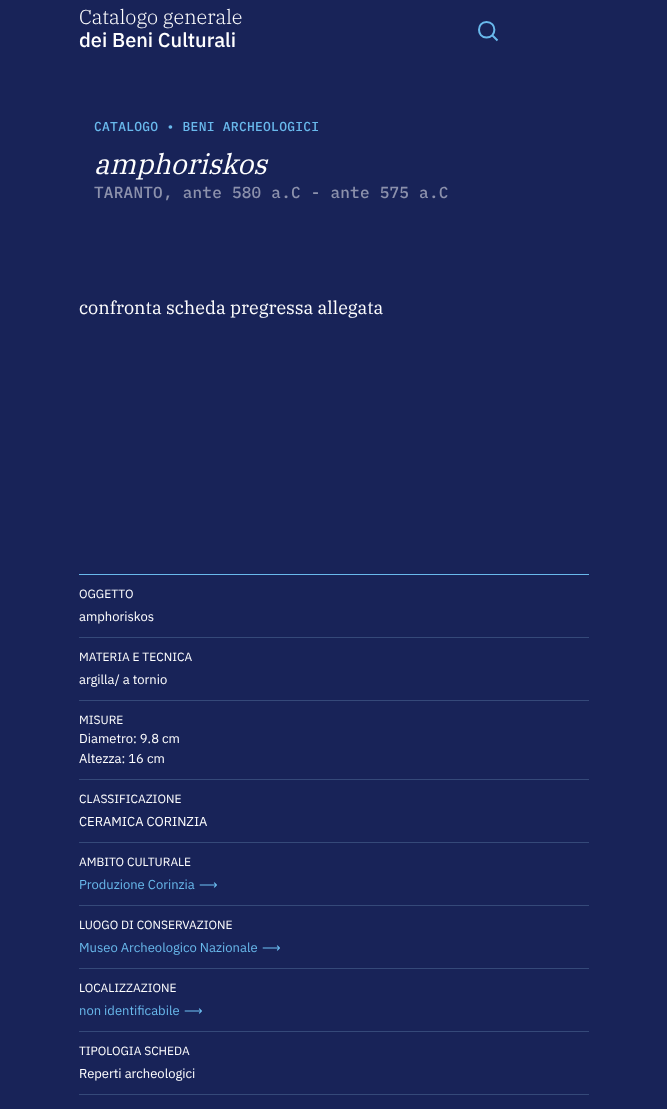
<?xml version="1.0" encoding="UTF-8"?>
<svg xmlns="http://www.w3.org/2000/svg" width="667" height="1109">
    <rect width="100%" height="100%" fill="#182358"/>
    <text x="79" y="24" font-family="IBM Plex Serif" font-size="20" font-weight="300" fill="#FFFFFF">Catalogo generale</text>
    <text x="79" y="47" font-family="IBM Plex Sans" font-size="20" font-weight="500" fill="#FFFFFF">dei Beni Culturali</text>
    <path d="M 486.5 37.5 C 497 37.5 497 22 486.5 22 C 476.5 22 476.5 37.5 486.5 37.5 Z M 492.5 35.5 L 497.5 40.5" fill="none" stroke="#69B9EC" stroke-width="2"/>
    <text x="94" y="131" font-family="IBM Plex Mono" font-size="13" font-weight="500" letter-spacing="0.25" fill="#69B9EC">CATALOGO • BENI ARCHEOLOGICI</text>
    <text x="94" y="174" font-family="IBM Plex Serif" font-size="28" font-style="italic" fill="#FFFFFF">amphoriskos</text>
    <text x="94" y="198" font-family="IBM Plex Mono" font-size="16" font-weight="500" letter-spacing="0.25" fill="#8C91AC">TARANTO, ante 580 a.C - ante 575 a.C</text>
    <text x="79" y="314" font-family="IBM Plex Serif" font-size="18" fill="#FFFFFF">confronta scheda pregressa allegata</text>
    <rect x="79" y="574" width="510" height="1" fill="#69B9EC"/>
    <rect x="79" y="637" width="510" height="1" fill="#354979"/>
    <text x="79" y="598" font-family="IBM Plex Sans" font-size="12" fill="#FFFFFF">OGGETTO</text>
    <text x="79" y="621" font-family="IBM Plex Sans" font-size="13" fill="#FFFFFF">amphoriskos</text>
    <rect x="79" y="700" width="510" height="1" fill="#354979"/>
    <text x="79" y="661" font-family="IBM Plex Sans" font-size="12" fill="#FFFFFF">MATERIA E TECNICA</text>
    <text x="79" y="684" font-family="IBM Plex Sans" font-size="13" fill="#FFFFFF">argilla/ a tornio</text>
    <rect x="79" y="779" width="510" height="1" fill="#354979"/>
    <text x="79" y="724" font-family="IBM Plex Sans" font-size="12" fill="#FFFFFF">MISURE</text>
    <text font-family="IBM Plex Sans" font-size="13" fill="#FFFFFF">
        <tspan x="79" y="743">Diametro: 9.8 cm</tspan>
        <tspan x="79" y="763">Altezza: 16 cm</tspan>
    </text>
    <rect x="79" y="842" width="510" height="1" fill="#354979"/>
    <text x="79" y="803" font-family="IBM Plex Sans" font-size="12" fill="#FFFFFF">CLASSIFICAZIONE</text>
    <text x="79" y="826" font-family="IBM Plex Sans" font-size="13" fill="#FFFFFF">CERAMICA CORINZIA</text>
    <rect x="79" y="905" width="510" height="1" fill="#354979"/>
    <text x="79" y="866" font-family="IBM Plex Sans" font-size="12" fill="#FFFFFF">AMBITO CULTURALE</text>
    <text x="79" y="889" font-family="IBM Plex Sans" font-size="13" fill="#69B9EC">Produzione Corinzia</text>
    <text x="199" y="889" font-family="DejaVu Sans" font-size="13" fill="#69B9EC">⟶</text>
    <rect x="79" y="968" width="510" height="1" fill="#354979"/>
    <text x="79" y="929" font-family="IBM Plex Sans" font-size="12" fill="#FFFFFF">LUOGO DI CONSERVAZIONE</text>
    <text x="79" y="952" font-family="IBM Plex Sans" font-size="13" fill="#69B9EC">Museo Archeologico Nazionale</text>
    <text x="262" y="952" font-family="DejaVu Sans" font-size="13" fill="#69B9EC">⟶</text>
    <rect x="79" y="1031" width="510" height="1" fill="#354979"/>
    <text x="79" y="992" font-family="IBM Plex Sans" font-size="12" fill="#FFFFFF">LOCALIZZAZIONE</text>
    <text x="79" y="1015" font-family="IBM Plex Sans" font-size="13" fill="#69B9EC">non identificabile</text>
    <text x="184" y="1015" font-family="DejaVu Sans" font-size="13" fill="#69B9EC">⟶</text>
    <rect x="79" y="1094" width="510" height="1" fill="#354979"/>
    <text x="79" y="1055" font-family="IBM Plex Sans" font-size="12" fill="#FFFFFF">TIPOLOGIA SCHEDA</text>
    <text x="79" y="1078" font-family="IBM Plex Sans" font-size="13" fill="#FFFFFF">Reperti archeologici</text>
</svg>
